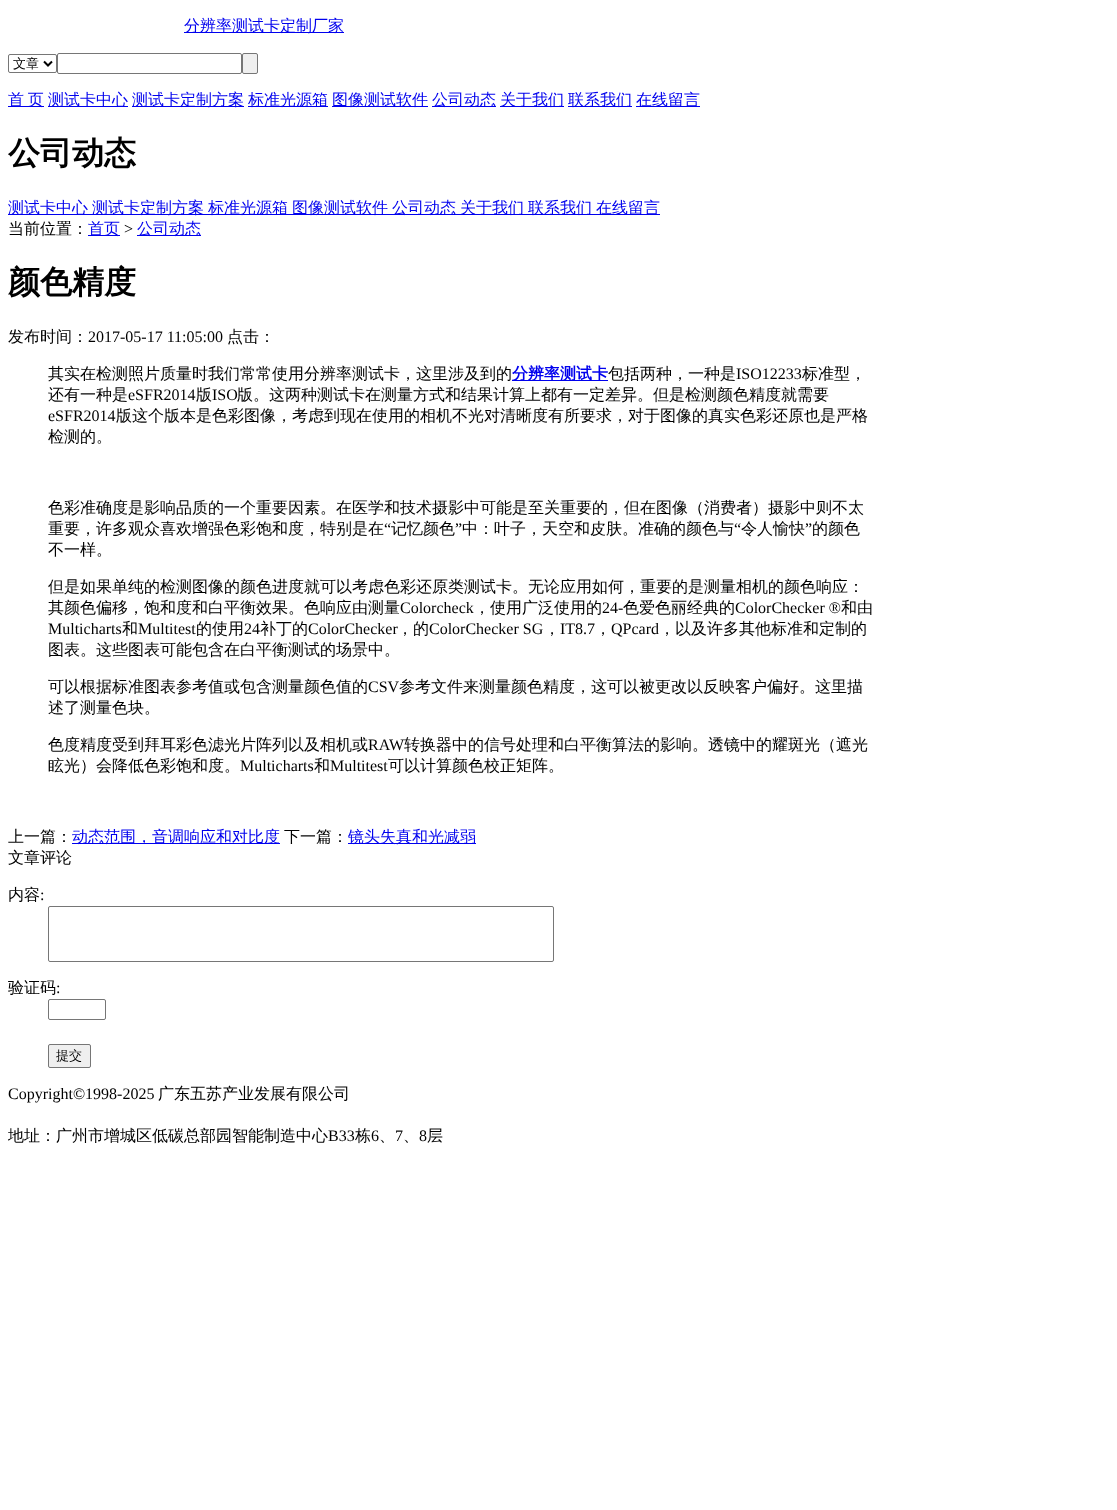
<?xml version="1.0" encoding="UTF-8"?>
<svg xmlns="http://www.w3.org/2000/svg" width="1117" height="1510">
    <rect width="100%" height="100%" fill="#FFFFFF"/>
    <rect x="184" y="32" width="160" height="1" fill="#0000EE"/>
    <text x="184" y="31" font-family="WenQuanYi Zen Hei" font-size="16" font-weight="500" fill="#0000EE">分辨率测试卡定制厂家</text>
    <rect x="8.5" y="54.5" width="48" height="18" rx="1.5" fill="none" stroke="#767676"/>
    <path d="M 44 61.5 L 48 65.5 L 52 61.5" fill="none" stroke="#000000" stroke-width="2"/>
    <text x="13" y="68" font-family="WenQuanYi Zen Hei" font-size="13" font-weight="500" fill="#000000">文章</text>
    <rect x="57.5" y="53.5" width="184" height="20" rx="1.5" fill="none" stroke="#767676"/>
    <rect x="242.5" y="53.5" width="15" height="20" rx="1.5" fill="#EFEFEF" stroke="#767676"/>
    <rect x="8" y="106" width="36" height="1" fill="#0000EE"/>
    <text x="8" y="105" word-spacing="-1" font-family="WenQuanYi Zen Hei" font-size="16" font-weight="500" fill="#0000EE">首 页</text>
    <rect x="48" y="106" width="80" height="1" fill="#0000EE"/>
    <text x="48" y="105" font-family="WenQuanYi Zen Hei" font-size="16" font-weight="500" fill="#0000EE">测试卡中心</text>
    <rect x="132" y="106" width="112" height="1" fill="#0000EE"/>
    <text x="132" y="105" font-family="WenQuanYi Zen Hei" font-size="16" font-weight="500" fill="#0000EE">测试卡定制方案</text>
    <rect x="248" y="106" width="80" height="1" fill="#0000EE"/>
    <text x="248" y="105" font-family="WenQuanYi Zen Hei" font-size="16" font-weight="500" fill="#0000EE">标准光源箱</text>
    <rect x="332" y="106" width="96" height="1" fill="#0000EE"/>
    <text x="332" y="105" font-family="WenQuanYi Zen Hei" font-size="16" font-weight="500" fill="#0000EE">图像测试软件</text>
    <rect x="432" y="106" width="64" height="1" fill="#0000EE"/>
    <text x="432" y="105" font-family="WenQuanYi Zen Hei" font-size="16" font-weight="500" fill="#0000EE">公司动态</text>
    <rect x="500" y="106" width="64" height="1" fill="#0000EE"/>
    <text x="500" y="105" font-family="WenQuanYi Zen Hei" font-size="16" font-weight="500" fill="#0000EE">关于我们</text>
    <rect x="568" y="106" width="64" height="1" fill="#0000EE"/>
    <text x="568" y="105" font-family="WenQuanYi Zen Hei" font-size="16" font-weight="500" fill="#0000EE">联系我们</text>
    <rect x="636" y="106" width="64" height="1" fill="#0000EE"/>
    <text x="636" y="105" font-family="WenQuanYi Zen Hei" font-size="16" font-weight="500" fill="#0000EE">在线留言</text>
    <text x="8" y="164" font-family="WenQuanYi Zen Hei" font-size="32" font-weight="700" fill="#000000">公司动态</text>
    <rect x="8" y="214" width="652" height="1" fill="#0000EE"/>
    <text x="8" y="213" font-family="WenQuanYi Zen Hei" font-size="16" font-weight="500" fill="#0000EE">测试卡中心</text>
    <text x="92" y="213" font-family="WenQuanYi Zen Hei" font-size="16" font-weight="500" fill="#0000EE">测试卡定制方案</text>
    <text x="208" y="213" font-family="WenQuanYi Zen Hei" font-size="16" font-weight="500" fill="#0000EE">标准光源箱</text>
    <text x="292" y="213" font-family="WenQuanYi Zen Hei" font-size="16" font-weight="500" fill="#0000EE">图像测试软件</text>
    <text x="392" y="213" font-family="WenQuanYi Zen Hei" font-size="16" font-weight="500" fill="#0000EE">公司动态</text>
    <text x="460" y="213" font-family="WenQuanYi Zen Hei" font-size="16" font-weight="500" fill="#0000EE">关于我们</text>
    <text x="528" y="213" font-family="WenQuanYi Zen Hei" font-size="16" font-weight="500" fill="#0000EE">联系我们</text>
    <text x="596" y="213" font-family="WenQuanYi Zen Hei" font-size="16" font-weight="500" fill="#0000EE">在线留言</text>
    <text x="8" y="234" font-family="WenQuanYi Zen Hei" font-size="16" font-weight="500" fill="#000000">当前位置：</text>
    <rect x="88" y="235" width="32" height="1" fill="#0000EE"/>
    <text x="88" y="234" font-family="WenQuanYi Zen Hei" font-size="16" font-weight="500" fill="#0000EE">首页</text>
    <text x="124" y="234" font-family="Liberation Serif" font-size="16" fill="#000000">&gt;</text>
    <rect x="137" y="235" width="64" height="1" fill="#0000EE"/>
    <text x="137" y="234" font-family="WenQuanYi Zen Hei" font-size="16" font-weight="500" fill="#0000EE">公司动态</text>
    <text x="8" y="293" font-family="WenQuanYi Zen Hei" font-size="32" font-weight="700" fill="#000000">颜色精度</text>
    <text x="8" y="342" font-family="WenQuanYi Zen Hei" font-size="16" font-weight="500" fill="#000000">发布时间：</text>
    <text x="88" y="342" font-family="Liberation Serif" font-size="16" fill="#000000">2017-05-17 11:05:00</text>
    <text x="227" y="342" font-family="WenQuanYi Zen Hei" font-size="16" font-weight="500" fill="#000000">点击：</text>
    <text x="48" y="379" font-family="WenQuanYi Zen Hei" font-size="16" font-weight="500" fill="#000000">其实在检测照片质量时我们常常使用分辨率测试卡，这里涉及到的</text>
    <rect x="512" y="380" width="96" height="1" fill="#0000EE"/>
    <text x="512" y="379" font-family="WenQuanYi Zen Hei" font-size="16" font-weight="700" fill="#0000EE">分辨率测试卡</text>
    <text x="608" y="379" font-family="WenQuanYi Zen Hei" font-size="16" font-weight="500" fill="#000000">包括两种，一种是</text>
    <text x="736" y="379" font-family="Liberation Serif" font-size="16" fill="#000000">ISO12233</text>
    <text x="802" y="379" font-family="WenQuanYi Zen Hei" font-size="16" font-weight="500" fill="#000000">标准型，</text>
    <text x="48" y="400" font-family="WenQuanYi Zen Hei" font-size="16" font-weight="500" fill="#000000">还有一种是</text>
    <text x="128" y="400" font-family="Liberation Serif" font-size="16" fill="#000000">eSFR2014</text>
    <text x="196" y="400" font-family="WenQuanYi Zen Hei" font-size="16" font-weight="500" fill="#000000">版</text>
    <text x="212" y="400" font-family="Liberation Serif" font-size="16" fill="#000000">ISO</text>
    <text x="237" y="400" font-family="WenQuanYi Zen Hei" font-size="16" font-weight="500" fill="#000000">版。这两种测试卡在测量方式和结果计算上都有一定差异。但是检测颜色精度就需要</text>
    <text x="48" y="421" font-family="Liberation Serif" font-size="16" fill="#000000">eSFR2014</text>
    <text x="116" y="421" font-family="WenQuanYi Zen Hei" font-size="16" font-weight="500" fill="#000000">版这个版本是色彩图像，考虑到现在使用的相机不光对清晰度有所要求，对于图像的真实色彩还原也是严格</text>
    <text x="48" y="442" font-family="WenQuanYi Zen Hei" font-size="16" font-weight="500" fill="#000000">检测的。</text>
    <text font-family="WenQuanYi Zen Hei" font-size="16" font-weight="500" fill="#000000">
        <tspan x="48" y="513">色彩准确度是影响品质的一个重要因素。在医学和技术摄影中可能是至关重要的，但在图像（消费者）摄影中则不太</tspan>
        <tspan x="48" y="534">重要，许多观众喜欢增强色彩饱和度，特别是在</tspan>
    </text>
    <text x="384" y="534" font-family="Liberation Serif" font-size="16" fill="#000000">“</text>
    <text x="391" y="534" font-family="WenQuanYi Zen Hei" font-size="16" font-weight="500" fill="#000000">记忆颜色</text>
    <text x="455" y="534" font-family="Liberation Serif" font-size="16" fill="#000000">”</text>
    <text x="462" y="534" font-family="WenQuanYi Zen Hei" font-size="16" font-weight="500" fill="#000000">中：叶子，天空和皮肤。准确的颜色与</text>
    <text x="734" y="534" font-family="Liberation Serif" font-size="16" fill="#000000">“</text>
    <text x="741" y="534" font-family="WenQuanYi Zen Hei" font-size="16" font-weight="500" fill="#000000">令人愉快</text>
    <text x="805" y="534" font-family="Liberation Serif" font-size="16" fill="#000000">”</text>
    <text x="812" y="534" font-family="WenQuanYi Zen Hei" font-size="16" font-weight="500" fill="#000000">的颜色</text>
    <text x="48" y="555" font-family="WenQuanYi Zen Hei" font-size="16" font-weight="500" fill="#000000">不一样。</text>
    <text font-family="WenQuanYi Zen Hei" font-size="16" font-weight="500" fill="#000000">
        <tspan x="48" y="592">但是如果单纯的检测图像的颜色进度就可以考虑色彩还原类测试卡。无论应用如何，重要的是测量相机的颜色响应：</tspan>
        <tspan x="48" y="613">其颜色偏移，饱和度和白平衡效果。色响应由测量</tspan>
    </text>
    <text x="400" y="613" font-family="Liberation Serif" font-size="16" fill="#000000">Colorcheck</text>
    <text x="474" y="613" font-family="WenQuanYi Zen Hei" font-size="16" font-weight="500" fill="#000000">，使用广泛使用的</text>
    <text x="602" y="613" font-family="Liberation Serif" font-size="16" fill="#000000">24-</text>
    <text x="623" y="613" font-family="WenQuanYi Zen Hei" font-size="16" font-weight="500" fill="#000000">色爱色丽经典的</text>
    <text x="735" y="613" font-family="Liberation Serif" font-size="16" fill="#000000">ColorChecker ®</text>
    <text x="841" y="613" font-family="WenQuanYi Zen Hei" font-size="16" font-weight="500" fill="#000000">和由</text>
    <text x="48" y="634" font-family="Liberation Serif" font-size="16" fill="#000000">Multicharts</text>
    <text x="122" y="634" font-family="WenQuanYi Zen Hei" font-size="16" font-weight="500" fill="#000000">和</text>
    <text x="138" y="634" font-family="Liberation Serif" font-size="16" fill="#000000">Multitest</text>
    <text x="196" y="634" font-family="WenQuanYi Zen Hei" font-size="16" font-weight="500" fill="#000000">的使用</text>
    <text x="244" y="634" font-family="Liberation Serif" font-size="16" fill="#000000">24</text>
    <text x="260" y="634" font-family="WenQuanYi Zen Hei" font-size="16" font-weight="500" fill="#000000">补丁的</text>
    <text x="308" y="634" font-family="Liberation Serif" font-size="16" fill="#000000">ColorChecker</text>
    <text x="397" y="634" font-family="WenQuanYi Zen Hei" font-size="16" font-weight="500" fill="#000000">，的</text>
    <text x="429" y="634" font-family="Liberation Serif" font-size="16" fill="#000000">ColorChecker SG</text>
    <text x="544" y="634" font-family="WenQuanYi Zen Hei" font-size="16" font-weight="500" fill="#000000">，</text>
    <text x="560" y="634" font-family="Liberation Serif" font-size="16" fill="#000000">IT8.7</text>
    <text x="595" y="634" font-family="WenQuanYi Zen Hei" font-size="16" font-weight="500" fill="#000000">，</text>
    <text x="611" y="634" font-family="Liberation Serif" font-size="16" fill="#000000">QPcard</text>
    <text x="659" y="634" font-family="WenQuanYi Zen Hei" font-size="16" font-weight="500" fill="#000000">，以及许多其他标准和定制的</text>
    <text x="48" y="655" font-family="WenQuanYi Zen Hei" font-size="16" font-weight="500" fill="#000000">图表。这些图表可能包含在白平衡测试的场景中。</text>
    <text x="48" y="692" font-family="WenQuanYi Zen Hei" font-size="16" font-weight="500" fill="#000000">可以根据标准图表参考值或包含测量颜色值的</text>
    <text x="368" y="692" font-family="Liberation Serif" font-size="16" fill="#000000">CSV</text>
    <text x="399" y="692" font-family="WenQuanYi Zen Hei" font-size="16" font-weight="500" fill="#000000">参考文件来测量颜色精度，这可以被更改以反映客户偏好。这里描</text>
    <text x="48" y="713" font-family="WenQuanYi Zen Hei" font-size="16" font-weight="500" fill="#000000">述了测量色块。</text>
    <text x="48" y="750" font-family="WenQuanYi Zen Hei" font-size="16" font-weight="500" fill="#000000">色度精度受到拜耳彩色滤光片阵列以及相机或</text>
    <text x="368" y="750" font-family="Liberation Serif" font-size="16" fill="#000000">RAW</text>
    <text x="404" y="750" font-family="WenQuanYi Zen Hei" font-size="16" font-weight="500" fill="#000000">转换器中的信号处理和白平衡算法的影响。透镜中的耀斑光（遮光</text>
    <text x="48" y="771" font-family="WenQuanYi Zen Hei" font-size="16" font-weight="500" fill="#000000">眩光）会降低色彩饱和度。</text>
    <text x="240" y="771" font-family="Liberation Serif" font-size="16" fill="#000000">Multicharts</text>
    <text x="314" y="771" font-family="WenQuanYi Zen Hei" font-size="16" font-weight="500" fill="#000000">和</text>
    <text x="330" y="771" font-family="Liberation Serif" font-size="16" fill="#000000">Multitest</text>
    <text x="388" y="771" font-family="WenQuanYi Zen Hei" font-size="16" font-weight="500" fill="#000000">可以计算颜色校正矩阵。</text>
    <text x="8" y="842" font-family="WenQuanYi Zen Hei" font-size="16" font-weight="500" fill="#000000">上一篇：</text>
    <rect x="72" y="843" width="208" height="1" fill="#0000EE"/>
    <text x="72" y="842" font-family="WenQuanYi Zen Hei" font-size="16" font-weight="500" fill="#0000EE">动态范围，音调响应和对比度</text>
    <text x="284" y="842" font-family="WenQuanYi Zen Hei" font-size="16" font-weight="500" fill="#000000">下一篇：</text>
    <rect x="348" y="843" width="128" height="1" fill="#0000EE"/>
    <text x="348" y="842" font-family="WenQuanYi Zen Hei" font-size="16" font-weight="500" fill="#0000EE">镜头失真和光减弱</text>
    <text x="8" y="863" font-family="WenQuanYi Zen Hei" font-size="16" font-weight="500" fill="#000000">文章评论</text>
    <text x="8" y="900" font-family="WenQuanYi Zen Hei" font-size="16" font-weight="500" fill="#000000">内容</text>
    <text x="40" y="900" font-family="Liberation Serif" font-size="16" fill="#000000">:</text>
    <rect x="48.5" y="906.5" width="505" height="55" rx="1.5" fill="none" stroke="#767676"/>
    <text x="8" y="993" font-family="WenQuanYi Zen Hei" font-size="16" font-weight="500" fill="#000000">验证码</text>
    <text x="56" y="993" font-family="Liberation Serif" font-size="16" fill="#000000">:</text>
    <rect x="48.5" y="999.5" width="57" height="20" rx="1.5" fill="none" stroke="#767676"/>
    <rect x="48.5" y="1044.5" width="42" height="23" rx="1.5" fill="#EFEFEF" stroke="#767676"/>
    <text x="56" y="1060" font-family="WenQuanYi Zen Hei" font-size="13" font-weight="500" fill="#000000">提交</text>
    <text x="8" y="1099" font-family="Liberation Serif" font-size="16" fill="#000000">Copyright©1998-2025</text>
    <text x="158" y="1099" font-family="WenQuanYi Zen Hei" font-size="16" font-weight="500" fill="#000000">广东五苏产业发展有限公司</text>
    <text x="8" y="1141" font-family="WenQuanYi Zen Hei" font-size="16" font-weight="500" fill="#000000">地址：广州市增城区低碳总部园智能制造中心</text>
    <text x="328" y="1141" font-family="Liberation Serif" font-size="16" fill="#000000">B33</text>
    <text x="355" y="1141" font-family="WenQuanYi Zen Hei" font-size="16" font-weight="500" fill="#000000">栋</text>
    <text x="371" y="1141" font-family="Liberation Serif" font-size="16" fill="#000000">6</text>
    <text x="379" y="1141" font-family="WenQuanYi Zen Hei" font-size="16" font-weight="500" fill="#000000">、</text>
    <text x="395" y="1141" font-family="Liberation Serif" font-size="16" fill="#000000">7</text>
    <text x="403" y="1141" font-family="WenQuanYi Zen Hei" font-size="16" font-weight="500" fill="#000000">、</text>
    <text x="419" y="1141" font-family="Liberation Serif" font-size="16" fill="#000000">8</text>
    <text x="427" y="1141" font-family="WenQuanYi Zen Hei" font-size="16" font-weight="500" fill="#000000">层</text>
</svg>
